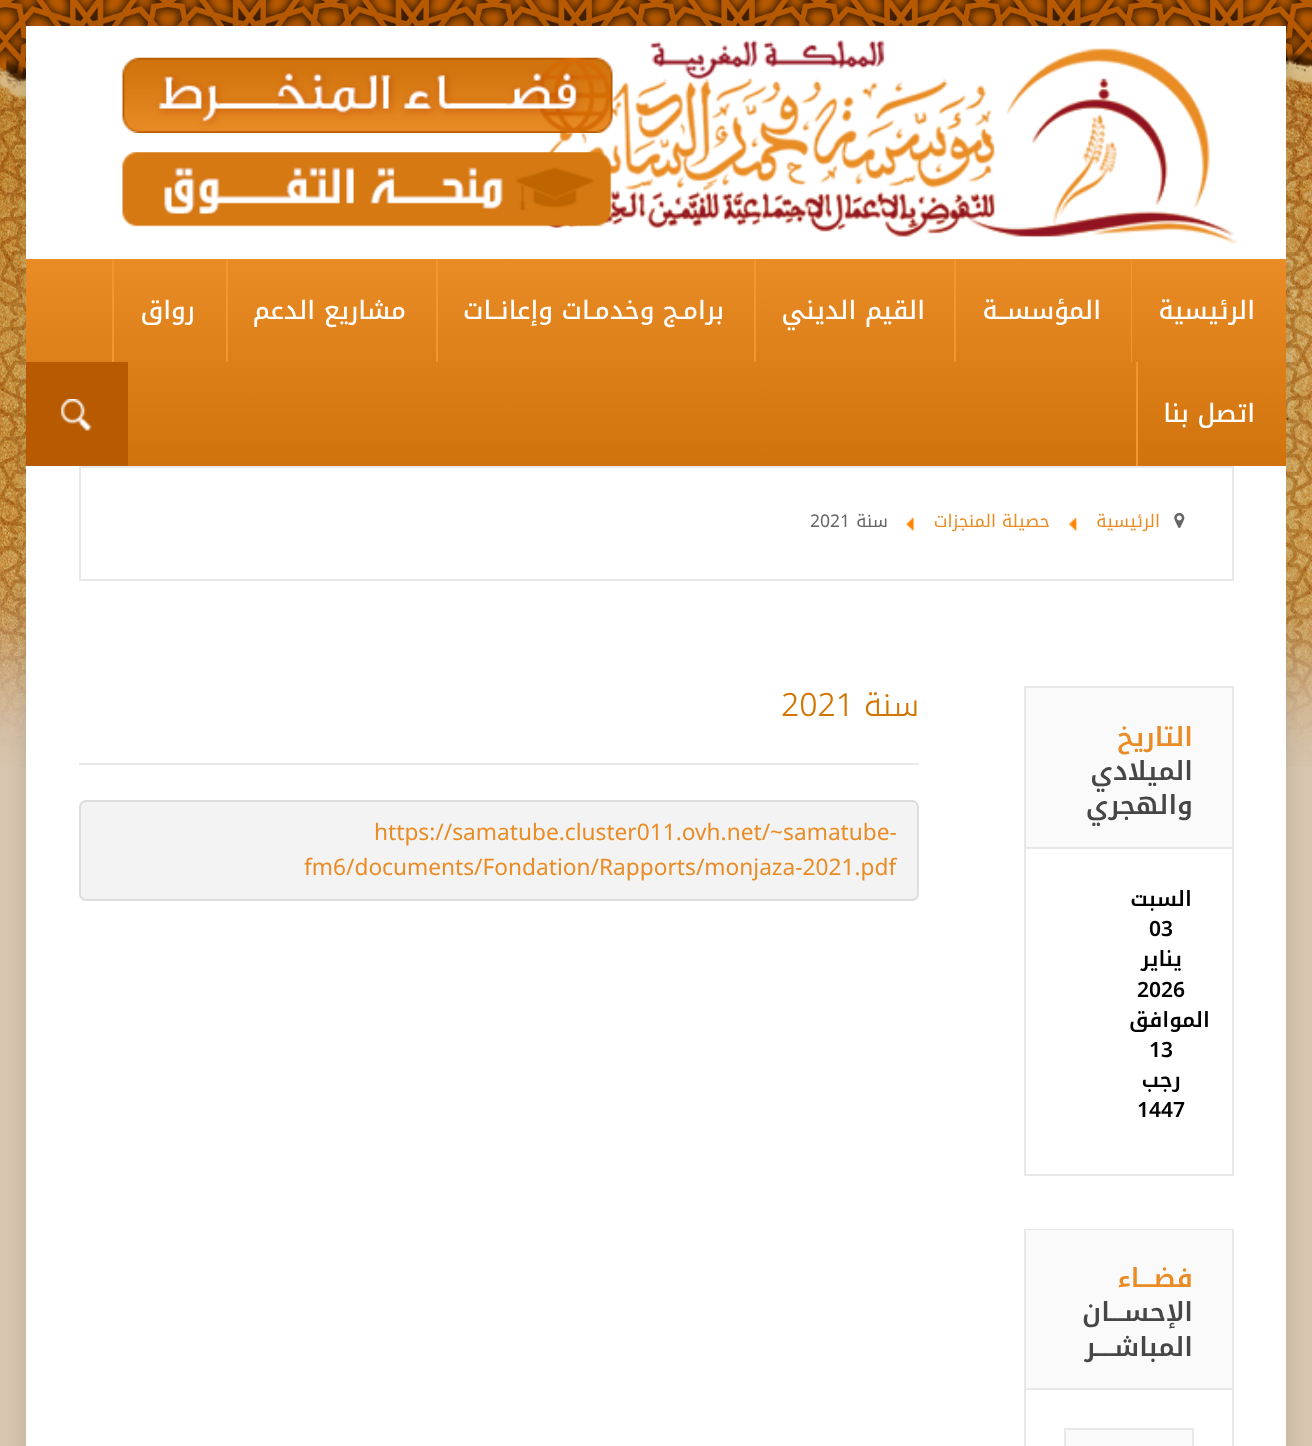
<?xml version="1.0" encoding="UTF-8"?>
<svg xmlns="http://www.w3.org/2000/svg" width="1312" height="1446">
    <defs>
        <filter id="blur1" x="-50%" y="-200%" width="200%" height="500%"><feGaussianBlur stdDeviation="9"/></filter>
        <linearGradient id="g1" gradientUnits="userSpaceOnUse" x1="656" y1="259" x2="656" y2="466"><stop offset="0" stop-color="#E98C25"/><stop offset="1" stop-color="#D0730C"/></linearGradient>
    </defs>
    <rect width="100%" height="100%" fill="#D7C5AF"/>
    <image x="0" y="0" width="1312" height="767" href="img_01.png"/>
    <rect x="26" y="26" width="1260" height="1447" fill="#000000" fill-opacity="0.12" filter="url(#blur1)"/>
    <rect x="26" y="26" width="1260" height="1420" fill="#FFFFFF"/>
    <image x="547" y="39" width="691" height="205" href="img_02.png"/>
    <image x="122" y="57" width="491" height="76" href="img_03.png"/>
    <image x="122" y="152" width="490" height="75" href="img_04.png"/>
    <rect x="26" y="259" width="1260" height="207" fill="url(#g1)"/>
    <rect x="1131" y="259" width="1" height="103" fill="#F3962F"/>
    <text x="1255" y="319" font-family="Noto Kufi Arabic" font-size="25.25" font-weight="500" direction="rtl" fill="#FFFFFF">الرئيسية</text>
    <rect x="954" y="259" width="2" height="103" fill="#F3962F"/>
    <text x="1101" y="319" font-family="Noto Kufi Arabic" font-size="25.25" font-weight="500" direction="rtl" fill="#FFFFFF">المؤسســة</text>
    <rect x="754" y="259" width="2" height="103" fill="#F3962F"/>
    <text x="925" y="319" font-family="Noto Kufi Arabic" font-size="25.25" font-weight="500" direction="rtl" fill="#FFFFFF">القيم الديني</text>
    <rect x="436" y="259" width="2" height="103" fill="#F3962F"/>
    <text x="724" y="319" font-family="Noto Kufi Arabic" font-size="25.25" font-weight="500" direction="rtl" fill="#FFFFFF">برامـج وخدمـات وإعانــات</text>
    <rect x="226" y="259" width="2" height="103" fill="#F3962F"/>
    <text x="406" y="319" font-family="Noto Kufi Arabic" font-size="25.25" font-weight="500" direction="rtl" fill="#FFFFFF">مشاريع الدعم</text>
    <rect x="112" y="259" width="2" height="103" fill="#F3962F"/>
    <text x="195" y="319" font-family="Noto Kufi Arabic" font-size="25.25" font-weight="500" direction="rtl" fill="#FFFFFF">رواق</text>
    <path d="M 1136 362 V 466 H 1285 H 1138 V 362 H 1285 Z" fill="#F3962F"/>
    <text x="1255" y="422" font-family="Noto Kufi Arabic" font-size="25.25" font-weight="500" direction="rtl" fill="#FFFFFF">اتصل بنا</text>
    <rect x="26" y="362" width="102" height="104" fill="#B75A00"/>
    <image x="60" y="399" width="32" height="32" href="img_05.png"/>
    <rect x="80" y="467" width="1153" height="113" fill="none" stroke="#E8E8E8" stroke-width="2"/>
    <image x="1174" y="512" width="11" height="16" href="img_06.png"/>
    <text x="1160" y="527" font-family="Noto Kufi Arabic" font-size="17.5" direction="rtl" fill="#E98C25">الرئيسية</text>
    <image x="1068" y="517" width="9" height="14" href="img_07.png"/>
    <text x="1050" y="527" font-family="Noto Kufi Arabic" font-size="17.5" direction="rtl" fill="#E98C25">حصيلة المنجزات</text>
    <image x="906" y="517" width="8" height="14" href="img_08.png"/>
    <text x="888" y="527" font-family="Noto Kufi Arabic" font-size="17.5" direction="rtl" fill="#666666">سنة</text>
    <text x="810" y="527" font-family="Noto Kufi Arabic" font-size="17.5" fill="#666666">2021</text>
    <rect x="1025" y="687" width="208" height="488" fill="none" stroke="#E8E8E8" stroke-width="2"/>
    <rect x="1026" y="688" width="206" height="159" fill="#FAFAFA"/>
    <rect x="1026" y="847" width="206" height="2" fill="#E8E8E8"/>
    <text x="1193" y="746" font-family="Noto Kufi Arabic" font-size="26.25" font-weight="600" direction="rtl" fill="#E98C25">التاريخ</text>
    <text font-family="Noto Kufi Arabic" font-size="26.25" font-weight="600" direction="rtl" fill="#464646">
        <tspan x="1193" y="780">الميلادي</tspan>
        <tspan x="1193" y="814">والهجري</tspan>
    </text>
    <text x="1192" y="906" font-family="Noto Kufi Arabic" font-size="21" font-weight="600" direction="rtl" fill="#000000">السبت</text>
    <text x="1149" y="936" font-family="Noto Kufi Arabic" font-size="21" font-weight="600" fill="#000000">03</text>
    <text x="1182" y="966" font-family="Noto Kufi Arabic" font-size="21" font-weight="600" direction="rtl" fill="#000000">يناير</text>
    <text x="1137" y="997" font-family="Noto Kufi Arabic" font-size="21" font-weight="600" fill="#000000">2026</text>
    <text x="1210" y="1027" font-family="Noto Kufi Arabic" font-size="21" font-weight="600" direction="rtl" fill="#000000">الموافق</text>
    <text x="1149" y="1057" font-family="Noto Kufi Arabic" font-size="21" font-weight="600" fill="#000000">13</text>
    <text x="1181" y="1087" font-family="Noto Kufi Arabic" font-size="21" font-weight="600" direction="rtl" fill="#000000">رجب</text>
    <text x="1137" y="1117" font-family="Noto Kufi Arabic" font-size="21" font-weight="600" fill="#000000">1447</text>
    <rect x="1025" y="1230" width="208" height="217" fill="none" stroke="#E8E8E8" stroke-width="2"/>
    <rect x="1026" y="1230" width="206" height="158" fill="#FAFAFA"/>
    <rect x="1026" y="1388" width="206" height="2" fill="#E8E8E8"/>
    <text x="1193" y="1287" font-family="Noto Kufi Arabic" font-size="26.25" font-weight="600" direction="rtl" fill="#E98C25">فضـــاء</text>
    <text font-family="Noto Kufi Arabic" font-size="26.25" font-weight="600" direction="rtl" fill="#464646">
        <tspan x="1193" y="1321">الإحســـان</tspan>
        <tspan x="1193" y="1356">المباشــــر</tspan>
    </text>
    <rect x="1192" y="1428" width="2" height="18" fill="#E8E8E8"/>
    <rect x="1064" y="1428" width="2" height="18" fill="#E8E8E8"/>
    <rect x="1066" y="1430" width="126" height="16" fill="#FAFAFA"/>
    <rect x="1066" y="1428" width="126" height="2" fill="#E8E8E8"/>
    <rect x="79" y="763" width="840" height="2" fill="#E9E9E9"/>
    <text x="919" y="716" font-family="Noto Kufi Arabic" font-size="32" font-weight="300" direction="rtl" fill="#D27500">سنة</text>
    <text x="781" y="716" font-family="Noto Kufi Arabic" font-size="32" font-weight="300" fill="#D27500">2021</text>
    <rect x="80" y="801" width="838" height="99" rx="6" fill="#F3F3F3" stroke="#DDDDDD" stroke-width="2"/>
    <text x="374" y="840" font-family="Noto Kufi Arabic" font-size="22.7" fill="#E98C25">https://samatube.cluster011.ovh.net/~samatube-</text>
    <text x="304" y="875" font-family="Noto Kufi Arabic" font-size="22.7" fill="#E98C25">fm6/documents/Fondation/Rapports/monjaza-2021.pdf</text>
</svg>
